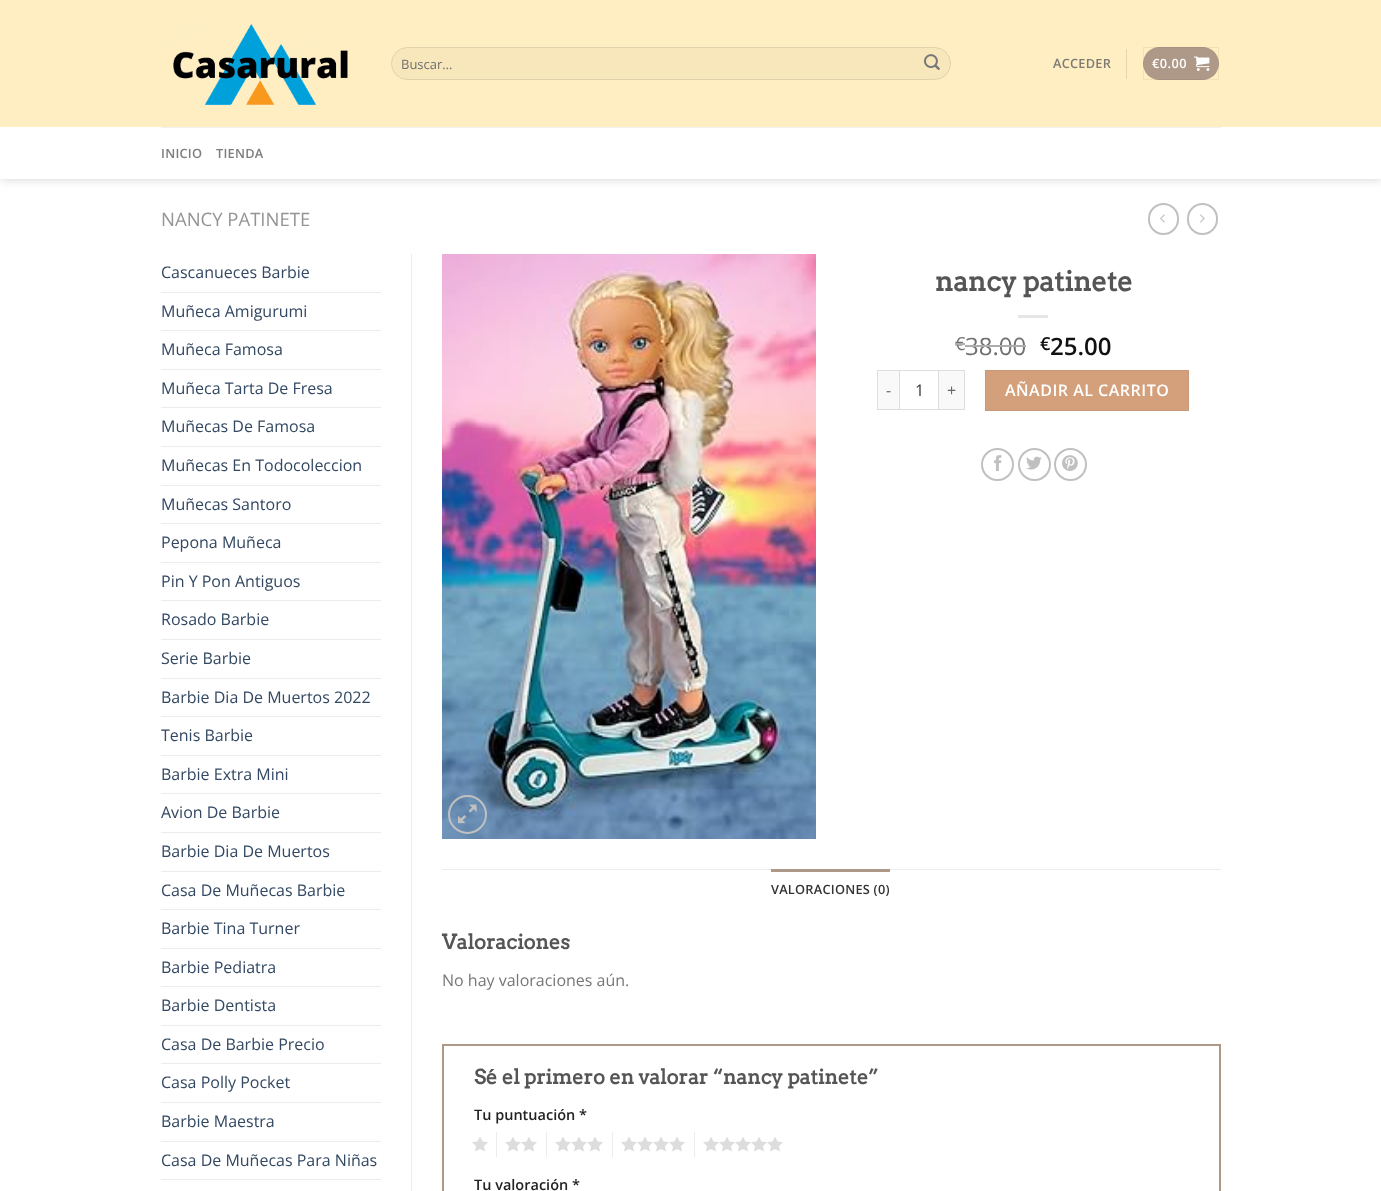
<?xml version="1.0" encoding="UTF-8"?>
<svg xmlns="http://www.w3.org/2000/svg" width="1381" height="1191">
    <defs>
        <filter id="blur1" x="-50%" y="-200%" width="200%" height="500%"><feGaussianBlur stdDeviation="5"/></filter>
    </defs>
    <rect width="100%" height="100%" fill="#FFFFFF"/>
    <rect x="1" y="1" width="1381" height="179" fill="#000000" fill-opacity="0.15" filter="url(#blur1)"/>
    <rect x="0" y="0" width="1381" height="127" fill="#FFEEC1"/>
    <image x="161" y="21" width="187" height="84" href="img_01.png"/>
    <rect x="391" y="47" width="560" height="33" rx="16.5" fill="#F7E7BB"/>
    <rect x="391.5" y="47.5" width="559" height="32" rx="16" fill="none" stroke="#000000" stroke-opacity="0.09"/>
    <text x="401" y="69" font-family="Open Sans" font-size="13" fill="#707070">Buscar…</text>
    <image x="924" y="54" width="16" height="16" href="img_02.png"/>
    <text x="1053" y="68" font-family="Open Sans" font-size="12.75" font-weight="600" letter-spacing="0.25" fill="#7D7A74">ACCEDER</text>
    <rect x="1126" y="49" width="1" height="30" fill="#E6D6AE"/>
    <rect x="1143" y="47" width="76" height="33" rx="16.5" fill="#AE9888"/>
    <rect x="1143.5" y="47.5" width="75" height="32" fill="none" stroke="#000000" stroke-opacity="0.05"/>
    <text x="1152" y="68" font-family="Open Sans" font-size="12.75" font-weight="600" letter-spacing="0.5" fill="#FFFFFF">€0.00</text>
    <image x="1194" y="56" width="16" height="15" href="img_03.png"/>
    <rect x="0" y="127" width="1381" height="52" fill="#FFFFFF"/>
    <rect x="161" y="127" width="1060" height="1" fill="#F1F1F1"/>
    <text x="161" y="158" font-family="Open Sans" font-size="12.75" font-weight="600" letter-spacing="0.25" fill="#7D7D7D">INICIO</text>
    <text x="216" y="158" font-family="Open Sans" font-size="12.75" font-weight="600" letter-spacing="0.25" fill="#7D7D7D">TIENDA</text>
    <text x="161" y="226" font-family="Open Sans" font-size="18.5" fill="#949494">NANCY PATINETE</text>
    <rect x="1149" y="204" width="29" height="30" rx="14.5" fill="none" stroke="#C0C0C0" stroke-width="2"/>
    <image x="1160" y="214" width="5" height="9" href="img_04.png"/>
    <rect x="1188" y="204" width="29" height="30" rx="14.5" fill="none" stroke="#C0C0C0" stroke-width="2"/>
    <image x="1200" y="214" width="5" height="9" href="img_05.png"/>
    <text x="161" y="278" font-family="Open Sans" font-size="16" fill="#334862">Cascanueces Barbie</text>
    <rect x="161" y="292" width="220" height="1" fill="#ECECEC"/>
    <text x="161" y="317" font-family="Open Sans" font-size="16" fill="#334862">Muñeca Amigurumi</text>
    <rect x="161" y="330" width="220" height="1" fill="#ECECEC"/>
    <text x="161" y="355" font-family="Open Sans" font-size="16" fill="#334862">Muñeca Famosa</text>
    <rect x="161" y="369" width="220" height="1" fill="#ECECEC"/>
    <text x="161" y="394" font-family="Open Sans" font-size="16" fill="#334862">Muñeca Tarta De Fresa</text>
    <rect x="161" y="407" width="220" height="1" fill="#ECECEC"/>
    <text x="161" y="432" font-family="Open Sans" font-size="16" fill="#334862">Muñecas De Famosa</text>
    <rect x="161" y="446" width="220" height="1" fill="#ECECEC"/>
    <text x="161" y="471" font-family="Open Sans" font-size="16" fill="#334862">Muñecas En Todocoleccion</text>
    <rect x="161" y="485" width="220" height="1" fill="#ECECEC"/>
    <text x="161" y="510" font-family="Open Sans" font-size="16" fill="#334862">Muñecas Santoro</text>
    <rect x="161" y="523" width="220" height="1" fill="#ECECEC"/>
    <text x="161" y="548" font-family="Open Sans" font-size="16" fill="#334862">Pepona Muñeca</text>
    <rect x="161" y="562" width="220" height="1" fill="#ECECEC"/>
    <text x="161" y="587" font-family="Open Sans" font-size="16" fill="#334862">Pin Y Pon Antiguos</text>
    <rect x="161" y="600" width="220" height="1" fill="#ECECEC"/>
    <text x="161" y="625" font-family="Open Sans" font-size="16" fill="#334862">Rosado Barbie</text>
    <rect x="161" y="639" width="220" height="1" fill="#ECECEC"/>
    <text x="161" y="664" font-family="Open Sans" font-size="16" fill="#334862">Serie Barbie</text>
    <rect x="161" y="678" width="220" height="1" fill="#ECECEC"/>
    <text x="161" y="703" font-family="Open Sans" font-size="16" fill="#334862">Barbie Dia De Muertos 2022</text>
    <rect x="161" y="716" width="220" height="1" fill="#ECECEC"/>
    <text x="161" y="741" font-family="Open Sans" font-size="16" fill="#334862">Tenis Barbie</text>
    <rect x="161" y="755" width="220" height="1" fill="#ECECEC"/>
    <text x="161" y="780" font-family="Open Sans" font-size="16" fill="#334862">Barbie Extra Mini</text>
    <rect x="161" y="793" width="220" height="1" fill="#ECECEC"/>
    <text x="161" y="818" font-family="Open Sans" font-size="16" fill="#334862">Avion De Barbie</text>
    <rect x="161" y="832" width="220" height="1" fill="#ECECEC"/>
    <text x="161" y="857" font-family="Open Sans" font-size="16" fill="#334862">Barbie Dia De Muertos</text>
    <rect x="161" y="871" width="220" height="1" fill="#ECECEC"/>
    <text x="161" y="896" font-family="Open Sans" font-size="16" fill="#334862">Casa De Muñecas Barbie</text>
    <rect x="161" y="909" width="220" height="1" fill="#ECECEC"/>
    <text x="161" y="934" font-family="Open Sans" font-size="16" fill="#334862">Barbie Tina Turner</text>
    <rect x="161" y="948" width="220" height="1" fill="#ECECEC"/>
    <text x="161" y="973" font-family="Open Sans" font-size="16" fill="#334862">Barbie Pediatra</text>
    <rect x="161" y="986" width="220" height="1" fill="#ECECEC"/>
    <text x="161" y="1011" font-family="Open Sans" font-size="16" fill="#334862">Barbie Dentista</text>
    <rect x="161" y="1025" width="220" height="1" fill="#ECECEC"/>
    <text x="161" y="1050" font-family="Open Sans" font-size="16" fill="#334862">Casa De Barbie Precio</text>
    <rect x="161" y="1063" width="220" height="1" fill="#ECECEC"/>
    <text x="161" y="1088" font-family="Open Sans" font-size="16" fill="#334862">Casa Polly Pocket</text>
    <rect x="161" y="1102" width="220" height="1" fill="#ECECEC"/>
    <text x="161" y="1127" font-family="Open Sans" font-size="16" fill="#334862">Barbie Maestra</text>
    <rect x="161" y="1141" width="220" height="1" fill="#ECECEC"/>
    <text x="161" y="1166" font-family="Open Sans" font-size="16" fill="#334862">Casa De Muñecas Para Niñas</text>
    <rect x="161" y="1179" width="220" height="1" fill="#ECECEC"/>
    <rect x="411" y="254" width="1" height="937" fill="#ECECEC"/>
    <image x="442" y="254" width="374" height="585" href="img_06.png"/>
    <circle cx="467.5" cy="814.5" r="18.5" fill="none" stroke="#C0C0C0" stroke-width="2"/>
    <image x="458" y="804" width="19" height="20" href="img_07.png"/>
    <text x="935" y="291" font-family="Arvo" font-size="27.25" font-weight="700" fill="#555555">nancy patinete</text>
    <rect x="1018" y="315" width="30" height="3" fill="#E6E6E6"/>
    <text x="955" y="350" font-family="Open Sans" font-size="18" fill="#707070">€</text>
    <rect x="955" y="343" width="10" height="2" fill="#ADADAD"/>
    <text x="965" y="355" font-family="Open Sans" font-size="24" fill="#707070">38.00</text>
    <rect x="965" y="345" width="61" height="2" fill="#ADADAD"/>
    <text x="1040" y="350" font-family="Open Sans" font-size="18" font-weight="600" fill="#111111">€</text>
    <text x="1050" y="355" font-family="Open Sans" font-size="24" font-weight="600" fill="#111111">25.00</text>
    <rect x="878" y="371" width="21" height="38" fill="#F9F9F9"/>
    <rect x="877" y="370" width="22" height="1" fill="#DDDDDD"/>
    <rect x="877" y="409" width="22" height="1" fill="#DDDDDD"/>
    <rect x="877" y="370" width="1" height="40" fill="#DDDDDD"/>
    <text x="886" y="396" font-family="Open Sans" font-size="16" fill="#666666">-</text>
    <rect x="899.5" y="370.5" width="39" height="39" fill="none" stroke="#DDDDDD"/>
    <text x="915" y="396" font-family="Open Sans" font-size="16" fill="#333333">1</text>
    <rect x="939" y="371" width="25" height="38" fill="#F9F9F9"/>
    <rect x="939" y="370" width="26" height="1" fill="#DDDDDD"/>
    <rect x="964" y="370" width="1" height="40" fill="#DDDDDD"/>
    <rect x="939" y="409" width="26" height="1" fill="#DDDDDD"/>
    <text x="947" y="396" font-family="Open Sans" font-size="16" fill="#666666">+</text>
    <rect x="985.5" y="370.5" width="203" height="40" fill="#D4A07C" stroke="#C99876"/>
    <text x="1005" y="396" font-family="Open Sans" font-size="16" font-weight="600" letter-spacing="0.5" fill="#FFFFFF">AÑADIR AL CARRITO</text>
    <circle cx="997.5" cy="464.5" r="15.5" fill="none" stroke="#C0C0C0" stroke-width="2"/>
    <image x="994" y="455" width="8" height="16" href="img_08.png"/>
    <circle cx="1034.5" cy="464.5" r="15.5" fill="none" stroke="#C0C0C0" stroke-width="2"/>
    <image x="1026" y="456" width="16" height="14" href="img_09.png"/>
    <circle cx="1070.5" cy="464.5" r="15.5" fill="none" stroke="#C0C0C0" stroke-width="2"/>
    <image x="1062" y="455" width="16" height="16" href="img_10.png"/>
    <rect x="442" y="869" width="779" height="1" fill="#ECECEC"/>
    <rect x="771" y="869" width="119" height="3" fill="#AE9888"/>
    <text x="771" y="894" font-family="Open Sans" font-size="12.75" font-weight="600" letter-spacing="0.25" fill="#333333">VALORACIONES (0)</text>
    <text x="442" y="949" font-family="Arvo" font-size="20" font-weight="700" fill="#555555">Valoraciones</text>
    <text x="442" y="986" font-family="Open Sans" font-size="16" fill="#777777">No hay valoraciones aún.</text>
    <rect x="443" y="1045" width="777" height="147" fill="none" stroke="#AE9888" stroke-width="2"/>
    <text x="474" y="1084" font-family="Arvo" font-size="20" font-weight="700" fill="#555555">Sé el primero en valorar “nancy patinete”</text>
    <text x="474" y="1120" font-family="Open Sans" font-size="14.5" font-weight="600" fill="#222222">Tu puntuación *</text>
    <image x="472" y="1137" width="16" height="15" href="img_11.png"/>
    <rect x="496" y="1132" width="1" height="25" fill="#ECECEC"/>
    <image x="505" y="1137" width="32" height="15" href="img_12.png"/>
    <rect x="546" y="1132" width="1" height="25" fill="#ECECEC"/>
    <image x="555" y="1137" width="48" height="15" href="img_13.png"/>
    <rect x="612" y="1132" width="1" height="25" fill="#ECECEC"/>
    <image x="621" y="1137" width="64" height="15" href="img_14.png"/>
    <rect x="694" y="1132" width="1" height="25" fill="#ECECEC"/>
    <image x="703" y="1137" width="80" height="15" href="img_15.png"/>
    <text x="474" y="1190" font-family="Open Sans" font-size="14.5" font-weight="600" fill="#222222">Tu valoración *</text>
</svg>
